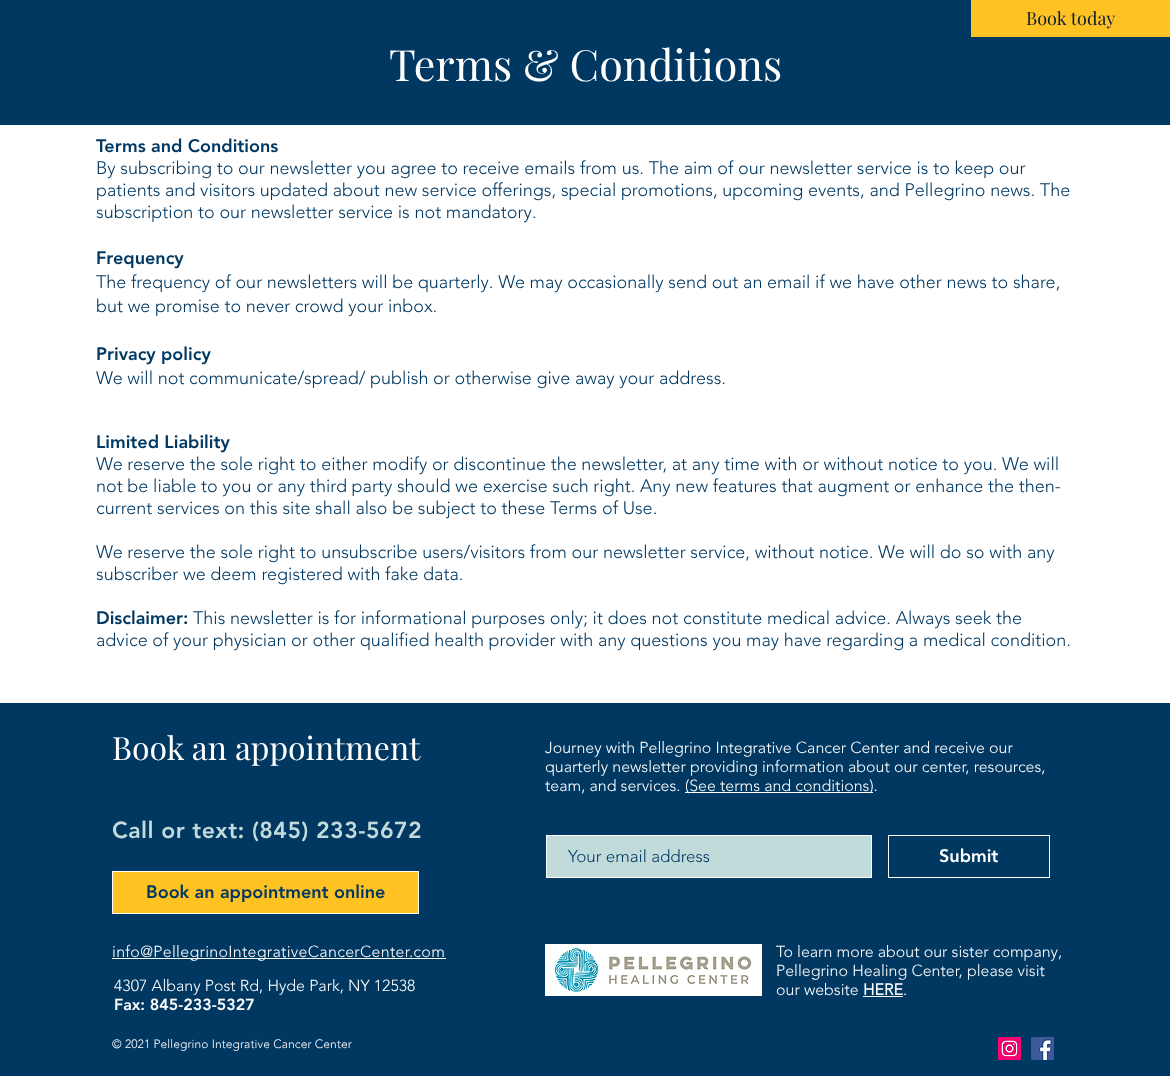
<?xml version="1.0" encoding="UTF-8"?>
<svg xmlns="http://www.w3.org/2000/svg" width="1170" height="1076">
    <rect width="100%" height="100%" fill="#FFFFFF"/>
    <rect x="0" y="0" width="971" height="1" fill="#003862"/>
    <rect x="0" y="1" width="1170" height="124" fill="#003862"/>
    <rect x="971" y="0" width="199" height="37" fill="#FEC223"/>
    <text x="1026" y="25" font-family="Playfair Display" font-size="18" fill="#0C1D39">Book today</text>
    <text x="389" y="81" font-family="Playfair Display" font-size="43" fill="#FFFFFF">Terms &amp; Conditions</text>
    <text x="96" y="152" font-family="'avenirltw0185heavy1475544'" font-size="18" font-weight="900" fill="#003862">Terms and Conditions</text>
    <text font-family="'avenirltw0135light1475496'" font-size="18" font-weight="300" fill="#003862">
        <tspan x="96" y="174">By subscribing to our newsletter you agree to receive emails from us. The aim of our newsletter service is to keep our</tspan>
        <tspan x="96" y="196">patients and visitors updated about new service offerings, special promotions, upcoming events, and Pellegrino news. The</tspan>
        <tspan x="96" y="218">subscription to our newsletter service is not mandatory.</tspan>
    </text>
    <text x="96" y="264" font-family="'avenirltw0185heavy1475544'" font-size="18" font-weight="900" fill="#003862">Frequency</text>
    <text font-family="'avenirltw0135light1475496'" font-size="18" font-weight="300" fill="#003862">
        <tspan x="96" y="288">The frequency of our newsletters will be quarterly. We may occasionally send out an email if we have other news to share,</tspan>
        <tspan x="96" y="312">but we promise to never crowd your inbox.</tspan>
    </text>
    <text x="96" y="360" font-family="'avenirltw0185heavy1475544'" font-size="18" font-weight="900" fill="#003862">Privacy policy</text>
    <text x="96" y="384" font-family="'avenirltw0135light1475496'" font-size="18" font-weight="300" fill="#003862">We will not communicate/spread/ publish or otherwise give away your address.</text>
    <text x="96" y="448" font-family="'avenirltw0185heavy1475544'" font-size="18" font-weight="900" fill="#003862">Limited Liability</text>
    <text font-family="'avenirltw0135light1475496'" font-size="18" font-weight="300" fill="#003862">
        <tspan x="96" y="470">We reserve the sole right to either modify or discontinue the newsletter, at any time with or without notice to you. We will</tspan>
        <tspan x="96" y="492">not be liable to you or any third party should we exercise such right. Any new features that augment or enhance the then-</tspan>
        <tspan x="96" y="514">current services on this site shall also be subject to these Terms of Use.</tspan>
    </text>
    <text font-family="'avenirltw0135light1475496'" font-size="18" font-weight="300" fill="#003862">
        <tspan x="96" y="558">We reserve the sole right to unsubscribe users/visitors from our newsletter service, without notice. We will do so with any</tspan>
        <tspan x="96" y="580">subscriber we deem registered with fake data.</tspan>
    </text>
    <text x="96" y="624" font-family="'avenirltw0185heavy1475544'" font-size="18" font-weight="900" fill="#003862">Disclaimer:</text>
    <text x="193" y="624" font-family="'avenirltw0135light1475496'" font-size="18" font-weight="300" fill="#003862">This newsletter is for informational purposes only; it does not constitute medical advice. Always seek the</text>
    <text x="96" y="646" font-family="'avenirltw0135light1475496'" font-size="18" font-weight="300" fill="#003862">advice of your physician or other qualified health provider with any questions you may have regarding a medical condition.</text>
    <rect x="0" y="703" width="1170" height="373" fill="#003862"/>
    <text x="112" y="760" font-family="Playfair Display" font-size="32" fill="#FFFFFF">Book an appointment</text>
    <text font-family="'avenirltw0135light1475496'" font-size="16" font-weight="300" fill="#FFFFFF">
        <tspan x="545" y="753">Journey with Pellegrino Integrative Cancer Center and receive our</tspan>
        <tspan x="545" y="772">quarterly newsletter providing information about our center, resources,</tspan>
        <tspan x="545" y="791">team, and services.</tspan>
    </text>
    <rect x="685" y="792" width="188" height="1" fill="#FFFFFF"/>
    <text x="685" y="791" font-family="'avenirltw0135light1475496'" font-size="16" font-weight="300" fill="#FFFFFF">(See terms and conditions).</text>
    <text x="112" y="838" font-family="'avenirltw0185heavy1475544'" font-size="23" font-weight="900" letter-spacing="0.45" fill="#C1DBDB">Call or text: (845) 233-5672</text>
    <rect x="546.5" y="835.5" width="325" height="42" fill="#C1DBDB" stroke="#FFFFFF"/>
    <text x="568" y="862" font-family="'avenirltw0135light1475496'" font-size="17" font-weight="300" fill="#003862">Your email address</text>
    <rect x="888.5" y="835.5" width="161" height="42" fill="none" stroke="#FFFFFF"/>
    <text x="939" y="862" font-family="'avenirltw0185heavy1475544'" font-size="18" font-weight="900" fill="#FFFFFF">Submit</text>
    <rect x="112.5" y="871.5" width="306" height="42" fill="#FEC223" stroke="#FFFFFF"/>
    <text x="146" y="898" font-family="'avenirltw0185heavy1475544'" font-size="18" font-weight="900" fill="#003862">Book an appointment online</text>
    <rect x="112" y="958" width="334" height="1" fill="#FFFFFF"/>
    <text x="112" y="957" font-family="'avenirltw0135light1475496'" font-size="16" font-weight="300" letter-spacing="0.3" fill="#FFFFFF">info@PellegrinoIntegrativeCancerCenter.com</text>
    <image x="545" y="944" width="217" height="52" href="img_01.png"/>
    <text font-family="'avenirltw0135light1475496'" font-size="16" font-weight="300" fill="#FFFFFF">
        <tspan x="776" y="957">To learn more about our sister company,</tspan>
        <tspan x="776" y="976">Pellegrino Healing Center, please visit</tspan>
        <tspan x="776" y="995">our website</tspan>
    </text>
    <text x="863" y="995" font-family="'avenirltw0135light1475496'" font-size="16" font-weight="700" fill="#FFFFFF">HERE</text>
    <text x="903" y="995" font-family="'avenirltw0135light1475496'" font-size="16" font-weight="300" fill="#FFFFFF">.</text>
    <rect x="863" y="996" width="40" height="1" fill="#FFFFFF"/>
    <text x="114" y="991" font-family="'avenirltw0135light1475496'" font-size="16" font-weight="300" fill="#FFFFFF">4307 Albany Post Rd, Hyde Park, NY 12538</text>
    <text x="114" y="1010" font-family="'avenirltw0185heavy1475544'" font-size="16" font-weight="900" fill="#FFFFFF">Fax: 845-233-5327</text>
    <text x="112" y="1048" font-family="'avenirltw0135light1475496'" font-size="12" font-weight="300" letter-spacing="0.1" fill="#FFFFFF">© 2021 Pellegrino Integrative Cancer Center</text>
    <image x="998" y="1037" width="23" height="23" href="img_02.png"/>
    <image x="1031" y="1037" width="23" height="23" href="img_03.png"/>
</svg>
